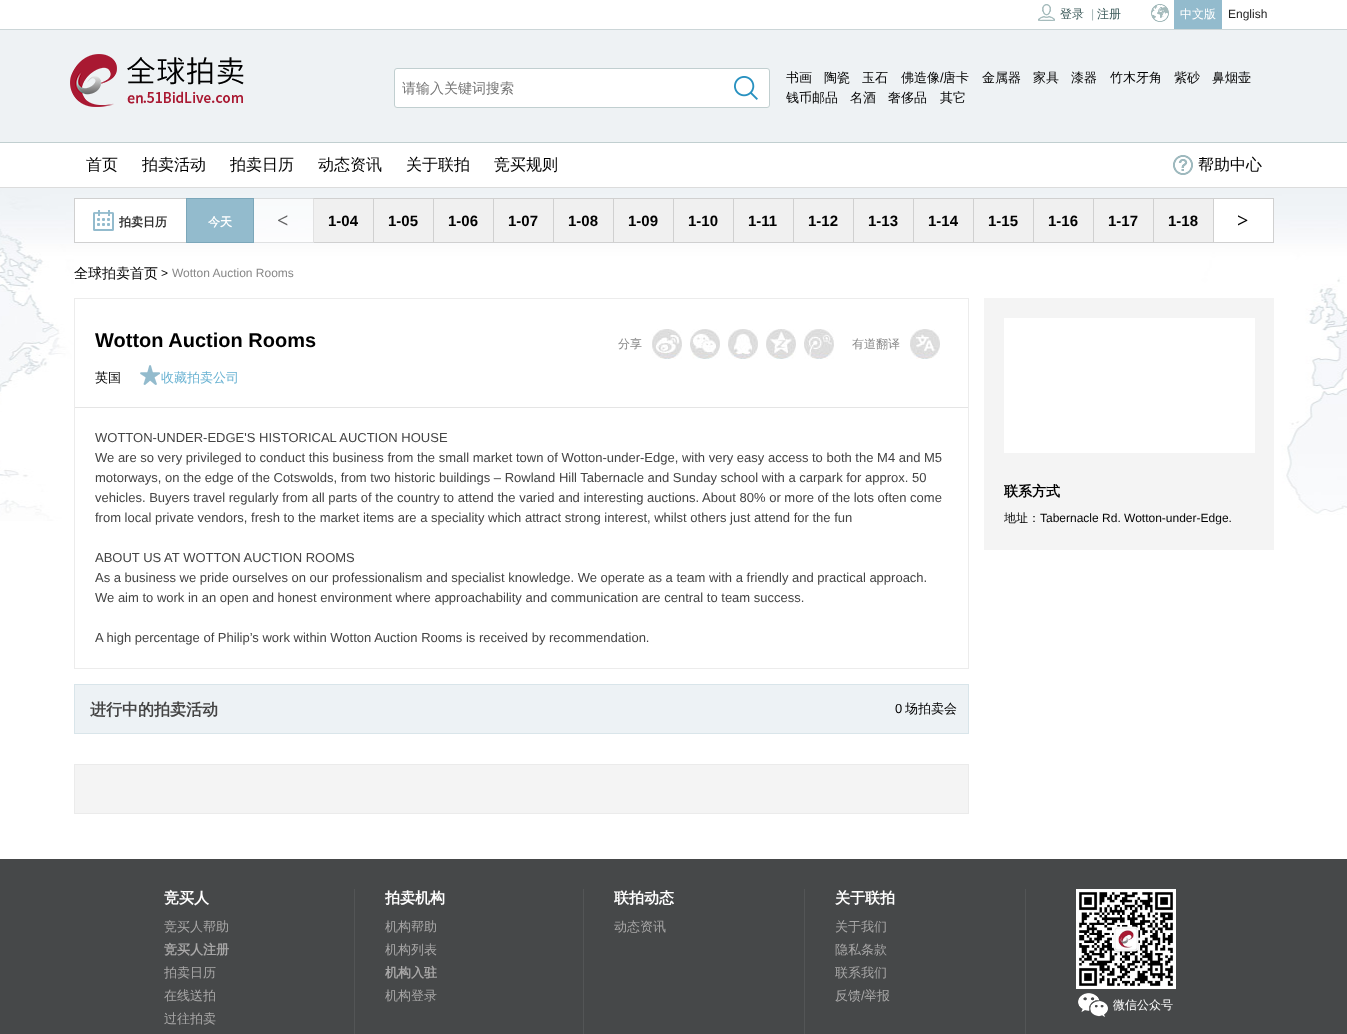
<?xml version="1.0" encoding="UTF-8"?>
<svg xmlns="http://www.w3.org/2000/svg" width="1347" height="1034">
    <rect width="100%" height="100%" fill="#FFFFFF"/>
    <rect x="0" y="29" width="1347" height="1" fill="#CCD6D8"/>
    <image x="1038" y="4" width="17" height="17" href="img_01.png"/>
    <text x="1060" y="18" font-family="WenQuanYi Zen Hei" font-size="12" font-weight="500" fill="#3F5D5D">登录</text>
    <text x="1091" y="18" font-family="Liberation Sans" font-size="12" fill="#A8B9B9">|</text>
    <text x="1097" y="18" font-family="WenQuanYi Zen Hei" font-size="12" font-weight="500" fill="#3F5D5D">注册</text>
    <image x="1151" y="4" width="18" height="18" href="img_02.png"/>
    <rect x="1174" y="0" width="48" height="29" fill="#93BBCD"/>
    <text x="1180" y="18" font-family="WenQuanYi Zen Hei" font-size="12" font-weight="500" fill="#FFFFFF">中文版</text>
    <text x="1228" y="18" font-family="Liberation Sans" font-size="12" fill="#222222">English</text>
    <rect x="0" y="30" width="1347" height="112" fill="#EEF2F4"/>
    <rect x="0" y="142" width="1347" height="1" fill="#C1CFD0"/>
    <image x="70" y="54" width="174" height="53" href="img_03.png"/>
    <rect x="394.5" y="68.5" width="375" height="39" rx="2.5" fill="#FFFFFF" stroke="#C1CFD0"/>
    <text x="402" y="93" font-family="WenQuanYi Zen Hei" font-size="14" font-weight="500" fill="#757575">请输入关键词搜索</text>
    <image x="734" y="76" width="24" height="24" href="img_04.png"/>
    <text x="786" y="82" font-family="WenQuanYi Zen Hei" font-size="13" font-weight="500" fill="#000000">书画</text>
    <text x="824" y="82" font-family="WenQuanYi Zen Hei" font-size="13" font-weight="500" fill="#000000">陶瓷</text>
    <text x="862" y="82" font-family="WenQuanYi Zen Hei" font-size="13" font-weight="500" fill="#000000">玉石</text>
    <text x="901" y="82" font-family="WenQuanYi Zen Hei" font-size="13" font-weight="500" fill="#000000">佛造像</text>
    <text x="940" y="82" font-family="Liberation Sans" font-size="13" fill="#000000">/</text>
    <text x="943" y="82" font-family="WenQuanYi Zen Hei" font-size="13" font-weight="500" fill="#000000">唐卡</text>
    <text x="982" y="82" font-family="WenQuanYi Zen Hei" font-size="13" font-weight="500" fill="#000000">金属器</text>
    <text x="1033" y="82" font-family="WenQuanYi Zen Hei" font-size="13" font-weight="500" fill="#000000">家具</text>
    <text x="1071" y="82" font-family="WenQuanYi Zen Hei" font-size="13" font-weight="500" fill="#000000">漆器</text>
    <text x="1110" y="82" font-family="WenQuanYi Zen Hei" font-size="13" font-weight="500" fill="#000000">竹木牙角</text>
    <text x="1174" y="82" font-family="WenQuanYi Zen Hei" font-size="13" font-weight="500" fill="#000000">紫砂</text>
    <text x="1212" y="82" font-family="WenQuanYi Zen Hei" font-size="13" font-weight="500" fill="#000000">鼻烟壶</text>
    <text x="786" y="102" font-family="WenQuanYi Zen Hei" font-size="13" font-weight="500" fill="#000000">钱币邮品</text>
    <text x="850" y="102" font-family="WenQuanYi Zen Hei" font-size="13" font-weight="500" fill="#000000">名酒</text>
    <text x="888" y="102" font-family="WenQuanYi Zen Hei" font-size="13" font-weight="500" fill="#000000">奢侈品</text>
    <text x="940" y="102" font-family="WenQuanYi Zen Hei" font-size="13" font-weight="500" fill="#000000">其它</text>
    <rect x="0" y="187" width="1347" height="1" fill="#DCDCDC"/>
    <text x="86" y="170" font-family="WenQuanYi Zen Hei" font-size="16" font-weight="500" fill="#000000">首页</text>
    <text x="142" y="170" font-family="WenQuanYi Zen Hei" font-size="16" font-weight="500" fill="#000000">拍卖活动</text>
    <text x="230" y="170" font-family="WenQuanYi Zen Hei" font-size="16" font-weight="500" fill="#000000">拍卖日历</text>
    <text x="318" y="170" font-family="WenQuanYi Zen Hei" font-size="16" font-weight="500" fill="#000000">动态资讯</text>
    <text x="406" y="170" font-family="WenQuanYi Zen Hei" font-size="16" font-weight="500" fill="#000000">关于联拍</text>
    <text x="494" y="170" font-family="WenQuanYi Zen Hei" font-size="16" font-weight="500" fill="#000000">竞买规则</text>
    <image x="1173" y="155" width="20" height="20" href="img_05.png"/>
    <text x="1198" y="170" font-family="WenQuanYi Zen Hei" font-size="16" font-weight="500" fill="#000000">帮助中心</text>
    <image x="0" y="188" width="1347" height="333" href="img_06.png"/>
    <rect x="75" y="199" width="111" height="43" fill="#FFFFFF"/>
    <rect x="74" y="198" width="112" height="1" fill="#D0D0D0"/>
    <rect x="74" y="242" width="112" height="1" fill="#D0D0D0"/>
    <rect x="74" y="198" width="1" height="45" fill="#D0D0D0"/>
    <image x="93" y="210" width="21" height="21" href="img_07.png"/>
    <text x="119" y="226" font-family="WenQuanYi Zen Hei" font-size="12" font-weight="700" fill="#2D2D2D">拍卖日历</text>
    <rect x="186.5" y="198.5" width="67" height="44" fill="#93BBCD" stroke="#7CA7BA"/>
    <text x="208" y="226" font-family="WenQuanYi Zen Hei" font-size="12" font-weight="700" fill="#FFFFFF">今天</text>
    <rect x="254" y="199" width="60" height="43" fill="#FFFFFF" fill-opacity="0.6"/>
    <rect x="254" y="198" width="60" height="1" fill="#DCDEDF"/>
    <rect x="313" y="198" width="1" height="45" fill="#D0D0D0" fill-opacity="0.6"/>
    <rect x="254" y="242" width="60" height="1" fill="#E0E1E2"/>
    <text x="277" y="227" font-family="Liberation Serif" font-size="20" font-weight="700" fill="#646465">&lt;</text>
    <rect x="314" y="199" width="59" height="43" fill="#F0F0F0"/>
    <rect x="314" y="198" width="900" height="1" fill="#D0D0D0"/>
    <rect x="373" y="198" width="1" height="45" fill="#D0D0D0"/>
    <rect x="314" y="242" width="60" height="1" fill="#D0D0D0"/>
    <text x="328" y="226" font-family="Liberation Sans" font-size="15" font-weight="700" fill="#000000">1-04</text>
    <rect x="374" y="199" width="59" height="43" fill="#F0F0F0"/>
    <rect x="433" y="198" width="1" height="45" fill="#D0D0D0"/>
    <rect x="374" y="242" width="60" height="1" fill="#D0D0D0"/>
    <text x="388" y="226" font-family="Liberation Sans" font-size="15" font-weight="700" fill="#000000">1-05</text>
    <rect x="434" y="199" width="59" height="43" fill="#F0F0F0"/>
    <rect x="493" y="198" width="1" height="45" fill="#D0D0D0"/>
    <rect x="434" y="242" width="60" height="1" fill="#D0D0D0"/>
    <text x="448" y="226" font-family="Liberation Sans" font-size="15" font-weight="700" fill="#000000">1-06</text>
    <rect x="494" y="199" width="59" height="43" fill="#F0F0F0"/>
    <rect x="553" y="198" width="1" height="45" fill="#D0D0D0"/>
    <rect x="494" y="242" width="60" height="1" fill="#D0D0D0"/>
    <text x="508" y="226" font-family="Liberation Sans" font-size="15" font-weight="700" fill="#000000">1-07</text>
    <rect x="554" y="199" width="59" height="43" fill="#F0F0F0"/>
    <rect x="613" y="198" width="1" height="45" fill="#D0D0D0"/>
    <rect x="554" y="242" width="60" height="1" fill="#D0D0D0"/>
    <text x="568" y="226" font-family="Liberation Sans" font-size="15" font-weight="700" fill="#000000">1-08</text>
    <rect x="614" y="199" width="59" height="43" fill="#F0F0F0"/>
    <rect x="673" y="198" width="1" height="45" fill="#D0D0D0"/>
    <rect x="614" y="242" width="60" height="1" fill="#D0D0D0"/>
    <text x="628" y="226" font-family="Liberation Sans" font-size="15" font-weight="700" fill="#000000">1-09</text>
    <rect x="674" y="199" width="59" height="43" fill="#F0F0F0"/>
    <rect x="733" y="198" width="1" height="45" fill="#D0D0D0"/>
    <rect x="674" y="242" width="60" height="1" fill="#D0D0D0"/>
    <text x="688" y="226" font-family="Liberation Sans" font-size="15" font-weight="700" fill="#000000">1-10</text>
    <rect x="734" y="199" width="59" height="43" fill="#F0F0F0"/>
    <rect x="793" y="198" width="1" height="45" fill="#D0D0D0"/>
    <rect x="734" y="242" width="60" height="1" fill="#D0D0D0"/>
    <text x="748" y="226" font-family="Liberation Sans" font-size="15" font-weight="700" fill="#000000">1-11</text>
    <rect x="794" y="199" width="59" height="43" fill="#F0F0F0"/>
    <rect x="853" y="198" width="1" height="45" fill="#D0D0D0"/>
    <rect x="794" y="242" width="60" height="1" fill="#D0D0D0"/>
    <text x="808" y="226" font-family="Liberation Sans" font-size="15" font-weight="700" fill="#000000">1-12</text>
    <rect x="854" y="199" width="59" height="43" fill="#F0F0F0"/>
    <rect x="913" y="198" width="1" height="45" fill="#D0D0D0"/>
    <rect x="854" y="242" width="60" height="1" fill="#D0D0D0"/>
    <text x="868" y="226" font-family="Liberation Sans" font-size="15" font-weight="700" fill="#000000">1-13</text>
    <rect x="914" y="199" width="59" height="43" fill="#F0F0F0"/>
    <rect x="973" y="198" width="1" height="45" fill="#D0D0D0"/>
    <rect x="914" y="242" width="60" height="1" fill="#D0D0D0"/>
    <text x="928" y="226" font-family="Liberation Sans" font-size="15" font-weight="700" fill="#000000">1-14</text>
    <rect x="974" y="199" width="59" height="43" fill="#F0F0F0"/>
    <rect x="1033" y="198" width="1" height="45" fill="#D0D0D0"/>
    <rect x="974" y="242" width="60" height="1" fill="#D0D0D0"/>
    <text x="988" y="226" font-family="Liberation Sans" font-size="15" font-weight="700" fill="#000000">1-15</text>
    <rect x="1034" y="199" width="59" height="43" fill="#F0F0F0"/>
    <rect x="1093" y="198" width="1" height="45" fill="#D0D0D0"/>
    <rect x="1034" y="242" width="60" height="1" fill="#D0D0D0"/>
    <text x="1048" y="226" font-family="Liberation Sans" font-size="15" font-weight="700" fill="#000000">1-16</text>
    <rect x="1094" y="199" width="59" height="43" fill="#F0F0F0"/>
    <rect x="1153" y="198" width="1" height="45" fill="#D0D0D0"/>
    <rect x="1094" y="242" width="60" height="1" fill="#D0D0D0"/>
    <text x="1108" y="226" font-family="Liberation Sans" font-size="15" font-weight="700" fill="#000000">1-17</text>
    <rect x="1154" y="199" width="59" height="43" fill="#F0F0F0"/>
    <rect x="1213" y="198" width="1" height="45" fill="#D0D0D0"/>
    <rect x="1154" y="242" width="60" height="1" fill="#D0D0D0"/>
    <text x="1168" y="226" font-family="Liberation Sans" font-size="15" font-weight="700" fill="#000000">1-18</text>
    <rect x="1214" y="199" width="59" height="43" fill="#FFFFFF"/>
    <rect x="1214" y="198" width="60" height="1" fill="#D0D0D0"/>
    <rect x="1273" y="198" width="1" height="45" fill="#D0D0D0"/>
    <rect x="1214" y="242" width="60" height="1" fill="#D0D0D0"/>
    <text x="1237" y="227" font-family="Liberation Serif" font-size="20" font-weight="700" fill="#000000">&gt;</text>
    <text x="74" y="278" font-family="WenQuanYi Zen Hei" font-size="14" font-weight="500" fill="#000000">全球拍卖首页</text>
    <text x="161" y="277" font-family="Liberation Sans" font-size="12" fill="#000000">&gt;</text>
    <text x="172" y="277" font-family="Liberation Sans" font-size="12" fill="#888888">Wotton Auction Rooms</text>
    <rect x="74.5" y="298.5" width="894" height="370" fill="none" stroke="#ECECEC"/>
    <rect x="75" y="407" width="893" height="1" fill="#E5E5E5"/>
    <text x="95" y="347" font-family="Liberation Sans" font-size="20" font-weight="700" fill="#000000">Wotton Auction Rooms</text>
    <text x="95" y="382" font-family="WenQuanYi Zen Hei" font-size="13" font-weight="500" fill="#000000">英国</text>
    <image x="140" y="365" width="20" height="20" href="img_08.png"/>
    <text x="161" y="382" font-family="WenQuanYi Zen Hei" font-size="13" font-weight="500" fill="#69B2D2">收藏拍卖公司</text>
    <text x="618" y="348" font-family="WenQuanYi Zen Hei" font-size="12" font-weight="500" fill="#888888">分享</text>
    <image x="652" y="329" width="30" height="30" href="img_09.png"/>
    <image x="690" y="329" width="30" height="30" href="img_10.png"/>
    <image x="728" y="329" width="30" height="30" href="img_11.png"/>
    <image x="766" y="329" width="30" height="30" href="img_12.png"/>
    <image x="804" y="329" width="30" height="30" href="img_13.png"/>
    <text x="852" y="348" font-family="WenQuanYi Zen Hei" font-size="12" font-weight="500" fill="#888888">有道翻译</text>
    <image x="910" y="329" width="30" height="30" href="img_14.png"/>
    <text font-family="Liberation Sans" font-size="13" fill="#444444">
        <tspan x="95" y="442">WOTTON-UNDER-EDGE'S HISTORICAL AUCTION HOUSE</tspan>
        <tspan x="95" y="462">We are so very privileged to conduct this business from the small market town of Wotton-under-Edge, with very easy access to both the M4 and M5</tspan>
        <tspan x="95" y="482">motorways, on the edge of the Cotswolds, from two historic buildings – Rowland Hill Tabernacle and Sunday school with a carpark for approx. 50</tspan>
        <tspan x="95" y="502">vehicles. Buyers travel regularly from all parts of the country to attend the varied and interesting auctions. About 80% or more of the lots often come</tspan>
        <tspan x="95" y="522">from local private vendors, fresh to the market items are a speciality which attract strong interest, whilst others just attend for the fun</tspan>
    </text>
    <text font-family="Liberation Sans" font-size="13" fill="#444444">
        <tspan x="95" y="562">ABOUT US AT WOTTON AUCTION ROOMS</tspan>
        <tspan x="95" y="582">As a business we pride ourselves on our professionalism and specialist knowledge. We operate as a team with a friendly and practical approach.</tspan>
        <tspan x="95" y="602">We aim to work in an open and honest environment where approachability and communication are central to team success.</tspan>
    </text>
    <text x="95" y="642" font-family="Liberation Sans" font-size="13" fill="#444444">A high percentage of Philip’s work within Wotton Auction Rooms is received by recommendation.</text>
    <rect x="74.5" y="684.5" width="894" height="49" fill="#EDF2F5" stroke="#D9E5EA"/>
    <text x="90" y="715" font-family="WenQuanYi Zen Hei" font-size="16" font-weight="700" fill="#444444">进行中的拍卖活动</text>
    <text x="895" y="713" font-family="Liberation Sans" font-size="13" fill="#000000">0</text>
    <text x="905" y="713" font-family="WenQuanYi Zen Hei" font-size="13" font-weight="500" fill="#000000">场拍卖会</text>
    <rect x="74.5" y="764.5" width="894" height="49" fill="#F4F4F4" stroke="#EBEBEB"/>
    <rect x="984" y="298" width="290" height="252" fill="#F4F4F4"/>
    <rect x="1004" y="318" width="251" height="135" fill="#FFFFFF"/>
    <text x="1004" y="496" font-family="WenQuanYi Zen Hei" font-size="14" font-weight="700" fill="#000000">联系方式</text>
    <text x="1004" y="522" font-family="WenQuanYi Zen Hei" font-size="12" font-weight="500" fill="#000000">地址：</text>
    <text x="1040" y="522" font-family="Liberation Sans" font-size="12" fill="#000000">Tabernacle Rd. Wotton-under-Edge.</text>
    <rect x="0" y="859" width="1347" height="175" fill="#464849"/>
    <text x="164" y="903" font-family="WenQuanYi Zen Hei" font-size="15" font-weight="700" fill="#FFFFFF">竞买人</text>
    <text x="164" y="931" font-family="WenQuanYi Zen Hei" font-size="13" font-weight="500" fill="#A8A7A7">竞买人帮助</text>
    <text x="164" y="954" font-family="WenQuanYi Zen Hei" font-size="13" font-weight="700" fill="#A8A7A7">竞买人注册</text>
    <text font-family="WenQuanYi Zen Hei" font-size="13" font-weight="500" fill="#A8A7A7">
        <tspan x="164" y="977">拍卖日历</tspan>
        <tspan x="164" y="1000">在线送拍</tspan>
        <tspan x="164" y="1023">过往拍卖</tspan>
    </text>
    <rect x="354" y="889" width="1" height="145" fill="#535556"/>
    <text x="385" y="903" font-family="WenQuanYi Zen Hei" font-size="15" font-weight="700" fill="#FFFFFF">拍卖机构</text>
    <text font-family="WenQuanYi Zen Hei" font-size="13" font-weight="500" fill="#A8A7A7">
        <tspan x="385" y="931">机构帮助</tspan>
        <tspan x="385" y="954">机构列表</tspan>
    </text>
    <text x="385" y="977" font-family="WenQuanYi Zen Hei" font-size="13" font-weight="700" fill="#A8A7A7">机构入驻</text>
    <text x="385" y="1000" font-family="WenQuanYi Zen Hei" font-size="13" font-weight="500" fill="#A8A7A7">机构登录</text>
    <rect x="583" y="889" width="1" height="145" fill="#535556"/>
    <text x="614" y="903" font-family="WenQuanYi Zen Hei" font-size="15" font-weight="700" fill="#FFFFFF">联拍动态</text>
    <text x="614" y="931" font-family="WenQuanYi Zen Hei" font-size="13" font-weight="500" fill="#A8A7A7">动态资讯</text>
    <rect x="804" y="889" width="1" height="145" fill="#535556"/>
    <text x="835" y="903" font-family="WenQuanYi Zen Hei" font-size="15" font-weight="700" fill="#FFFFFF">关于联拍</text>
    <text font-family="WenQuanYi Zen Hei" font-size="13" font-weight="500" fill="#A8A7A7">
        <tspan x="835" y="931">关于我们</tspan>
        <tspan x="835" y="954">隐私条款</tspan>
        <tspan x="835" y="977">联系我们</tspan>
        <tspan x="835" y="1000">反馈</tspan>
    </text>
    <text x="861" y="1000" font-family="Liberation Sans" font-size="13" fill="#A8A7A7">/</text>
    <text x="864" y="1000" font-family="WenQuanYi Zen Hei" font-size="13" font-weight="500" fill="#A8A7A7">举报</text>
    <rect x="1025" y="889" width="1" height="145" fill="#535556"/>
    <image x="1076" y="889" width="100" height="100" href="img_15.png"/>
    <image x="1078" y="993" width="30" height="24" href="img_16.png"/>
    <text x="1113" y="1009" font-family="WenQuanYi Zen Hei" font-size="12" font-weight="500" fill="#FFFFFF">微信公众号</text>
</svg>
